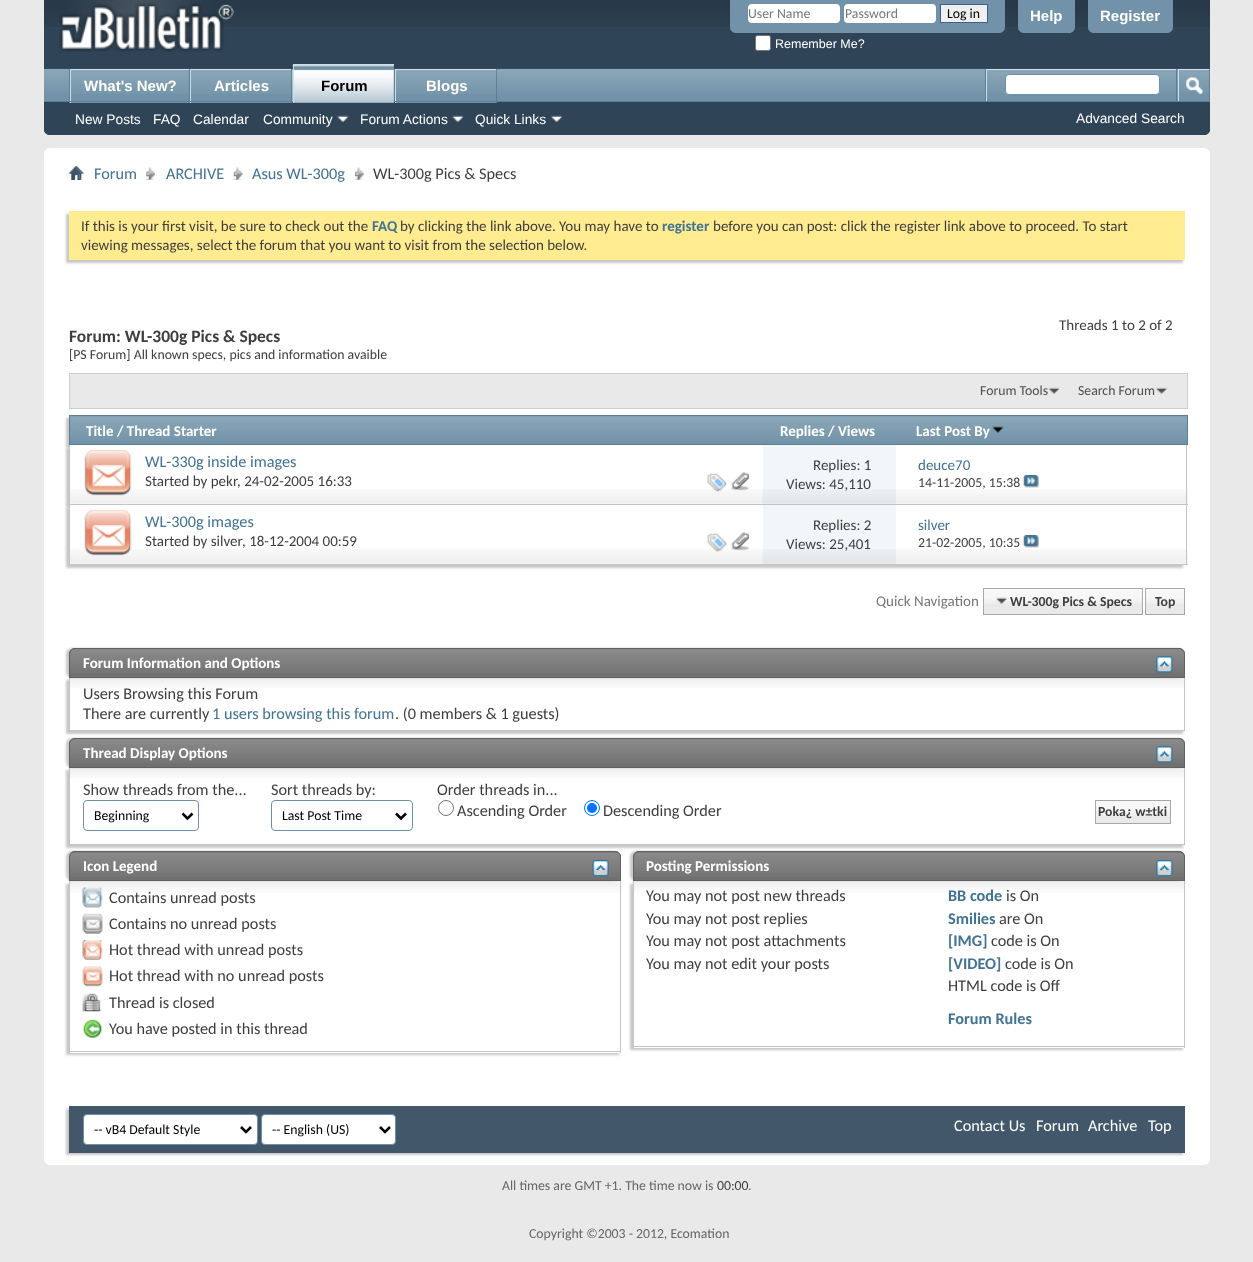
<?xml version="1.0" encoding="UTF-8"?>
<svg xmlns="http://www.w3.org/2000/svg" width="1253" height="1262">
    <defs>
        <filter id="blur1" x="-50%" y="-200%" width="200%" height="500%"><feGaussianBlur stdDeviation="1"/></filter>
        <clipPath id="clip1"><path d="M 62 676 H 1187 V 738 H 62 Z M 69 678 H 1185 V 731 H 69 Z" clip-rule="evenodd"/></clipPath>
        <clipPath id="clip2"><path d="M 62 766 H 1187 V 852 H 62 Z M 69 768 H 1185 V 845 H 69 Z" clip-rule="evenodd"/></clipPath>
    </defs>
    <rect width="100%" height="100%" fill="#E9E9E9"/>
    <path d="M 44 0 H 1210 V 129 C 1210 132.5 1207.5 135 1204 135 H 50 C 46.5 135 44 132.5 44 129 Z" fill="#2F4456"/>
    <image x="44" y="0" width="1166" height="27" href="img_01.png"/>
    <image x="59" y="0" width="175" height="52" href="img_02.png"/>
    <path d="M 730 0 H 1005 V 27 C 1005 30.5 1002.5 33 999 33 H 736 C 732.5 33 730 30.5 730 27 Z" fill="#7192A8"/>
    <rect x="748" y="4" width="92" height="19" rx="4" fill="#FFFFFF"/>
    <text x="748" y="18" font-family="Carlito" font-size="13.75" fill="#777777">User Name</text>
    <rect x="844" y="4" width="92" height="19" rx="4" fill="#FFFFFF"/>
    <text x="845" y="18" font-family="Carlito" font-size="13.75" fill="#777777">Password</text>
    <rect x="940.5" y="4.5" width="47" height="18" fill="#EFEFEF" stroke="#415D8D"/>
    <text x="947" y="18" font-family="Carlito" font-size="13.75" fill="#000000">Log in</text>
    <rect x="755.5" y="35.5" width="15" height="15" rx="2" fill="#FFFFFF" stroke="#767676"/>
    <text x="775" y="48" font-family="Liberation Sans" font-size="12.5" fill="#FFFFFF">Remember Me?</text>
    <path d="M 1018 0 H 1075 V 27 C 1075 30.5 1072.5 33 1069 33 H 1024 C 1020.5 33 1018 30.5 1018 27 Z" fill="#7192A8"/>
    <text x="1030" y="21" font-family="Liberation Sans" font-size="15" font-weight="700" fill="#FFFFFF">Help</text>
    <path d="M 1088 0 H 1173 V 27 C 1173 30.5 1170.5 33 1167 33 H 1094 C 1090.5 33 1088 30.5 1088 27 Z" fill="#7192A8"/>
    <text x="1100" y="21" font-family="Liberation Sans" font-size="15" font-weight="700" fill="#FFFFFF">Register</text>
    <path d="M 44 69 H 1210 V 129 C 1210 132.5 1207.5 135 1204 135 H 50 C 46.5 135 44 132.5 44 129 Z" fill="#2F4456"/>
    <rect x="44" y="69" width="1165" height="32" fill="#7192A8"/>
    <image x="44" y="68" width="1166" height="25" href="img_03.png"/>
    <rect x="189" y="69" width="1" height="34" fill="#5A7F97"/>
    <rect x="69" y="69" width="1" height="34" fill="#5A7F97"/>
    <rect x="71" y="70" width="118" height="33" fill="#7192A8"/>
    <image x="71" y="70" width="118" height="24" href="img_04.png"/>
    <rect x="70" y="69" width="119" height="1" fill="#CEDFEB"/>
    <rect x="70" y="69" width="1" height="34" fill="#CEDFEB"/>
    <text x="84" y="91" font-family="Liberation Sans" font-size="15" font-weight="700" fill="#FFFFFF">What's New?</text>
    <rect x="291" y="69" width="1" height="34" fill="#5A7F97"/>
    <rect x="191" y="70" width="100" height="33" fill="#7192A8"/>
    <image x="191" y="70" width="101" height="24" href="img_05.png"/>
    <rect x="190" y="69" width="101" height="1" fill="#CEDFEB"/>
    <rect x="190" y="69" width="1" height="34" fill="#CEDFEB"/>
    <text x="214" y="91" font-family="Liberation Sans" font-size="15" font-weight="700" fill="#FFFFFF">Articles</text>
    <rect x="394" y="69" width="1" height="32" fill="#5A7F97"/>
    <rect x="496" y="69" width="1" height="34" fill="#5A7F97"/>
    <rect x="396" y="70" width="100" height="33" fill="#7192A8"/>
    <rect x="395" y="69" width="101" height="1" fill="#CEDFEB"/>
    <rect x="395" y="69" width="1" height="34" fill="#CEDFEB"/>
    <rect x="44" y="101" width="1166" height="1" fill="#5A7F97"/>
    <rect x="294" y="65" width="100" height="38" fill="#7192A8"/>
    <image x="292" y="65" width="102" height="38" href="img_06.png"/>
    <rect x="293" y="64" width="101" height="1" fill="#CEDFEB"/>
    <rect x="293" y="64" width="1" height="39" fill="#CEDFEB"/>
    <text x="321" y="91" font-family="Liberation Sans" font-size="15" font-weight="700" fill="#000000">Forum</text>
    <image x="396" y="70" width="101" height="24" href="img_05.png"/>
    <text x="426" y="91" font-family="Liberation Sans" font-size="15" font-weight="700" fill="#FFFFFF">Blogs</text>
    <text x="75" y="124" font-family="Liberation Sans" font-size="13.75" fill="#FFFFFF">New Posts</text>
    <text x="153" y="124" font-family="Liberation Sans" font-size="13.75" fill="#FFFFFF">FAQ</text>
    <text x="193" y="124" font-family="Liberation Sans" font-size="13.75" fill="#FFFFFF">Calendar</text>
    <text x="263" y="124" font-family="Liberation Sans" font-size="13.75" fill="#FFFFFF">Community</text>
    <image x="337" y="115" width="12" height="7" href="img_07.png"/>
    <text x="360" y="124" font-family="Liberation Sans" font-size="13.75" fill="#FFFFFF">Forum Actions</text>
    <image x="452" y="115" width="12" height="7" href="img_07.png"/>
    <text x="475" y="124" font-family="Liberation Sans" font-size="13.75" fill="#FFFFFF">Quick Links</text>
    <image x="551" y="115" width="12" height="7" href="img_08.png"/>
    <rect x="985" y="69" width="1" height="32" fill="#5A7F97"/>
    <rect x="986" y="69" width="190" height="1" fill="#CEDFEB"/>
    <rect x="986" y="69" width="1" height="32" fill="#CEDFEB"/>
    <rect x="1005.5" y="74.5" width="154" height="20" rx="3.5" fill="#FFFFFF" stroke="#6B91AB"/>
    <rect x="1209" y="69" width="1" height="32" fill="#5A7F97"/>
    <rect x="1176" y="69" width="1" height="32" fill="#5A7F97"/>
    <rect x="1178" y="69" width="31" height="1" fill="#CEDFEB"/>
    <rect x="1178" y="69" width="1" height="32" fill="#CEDFEB"/>
    <image x="1186" y="77" width="17" height="18" href="img_09.png"/>
    <text x="1076" y="123" font-family="Liberation Sans" font-size="13.75" fill="#FFFFFF">Advanced Search</text>
    <rect x="44" y="148" width="1166" height="1017" rx="6" fill="#FFFFFF"/>
    <image x="68" y="166" width="16" height="14" href="img_10.png"/>
    <image x="146" y="167" width="9" height="13" href="img_11.png"/>
    <text x="94" y="179" font-family="Carlito" font-size="16.25" fill="#417394">Forum</text>
    <image x="233" y="167" width="10" height="13" href="img_12.png"/>
    <text x="166" y="179" font-family="Carlito" font-size="16.25" fill="#417394">ARCHIVE</text>
    <image x="355" y="167" width="9" height="13" href="img_13.png"/>
    <text x="252" y="179" font-family="Carlito" font-size="16.25" fill="#417394">Asus WL-300g</text>
    <text x="373" y="179" font-family="Carlito" font-size="16.25" fill="#3E3E3E">WL-300g Pics &amp; Specs</text>
    <rect x="66" y="214" width="1117" height="49" fill="#C8C8C8" filter="url(#blur1)"/>
    <rect x="69" y="211" width="1116" height="49" fill="#FFEB90"/>
    <text x="81" y="231" font-family="Carlito" font-size="15" fill="#3E3E3E">If this is your first visit, be sure to check out the</text>
    <text x="372" y="231" font-family="Carlito" font-size="15" font-weight="700" fill="#417394">FAQ</text>
    <text x="400" y="231" font-family="Carlito" font-size="15" fill="#3E3E3E">by clicking the link above. You may have to</text>
    <text x="662" y="231" font-family="Carlito" font-size="15" font-weight="700" fill="#417394">register</text>
    <text x="713" y="231" font-family="Carlito" font-size="15" fill="#3E3E3E">before you can post: click the register link above to proceed. To start</text>
    <text x="81" y="250" font-family="Carlito" font-size="15" fill="#3E3E3E">viewing messages, select the forum that you want to visit from the selection below.</text>
    <text x="1059" y="330" font-family="Carlito" font-size="15" fill="#3E3E3E">Threads 1 to 2 of 2</text>
    <text x="69" y="342" font-family="Carlito" font-size="17.5" font-weight="700" fill="#3E3E3E">Forum: WL-300g Pics &amp; Specs</text>
    <text x="69" y="359" font-family="Carlito" font-size="13.8" fill="#3E3E3E">[PS Forum] All known specs, pics and information avaible</text>
    <rect x="69.5" y="373.5" width="1118" height="35" fill="#E9E9E9" stroke="#CECECE"/>
    <image x="1048" y="387" width="12" height="8" href="img_14.png"/>
    <text x="980" y="395" font-family="Carlito" font-size="13.75" fill="#4E4E4E">Forum Tools</text>
    <image x="1156" y="387" width="12" height="8" href="img_15.png"/>
    <text x="1078" y="395" font-family="Carlito" font-size="13.75" fill="#4E4E4E">Search Forum</text>
    <rect x="66" y="418" width="1119" height="30" fill="#C8C8C8" filter="url(#blur1)"/>
    <rect x="70" y="416" width="1117" height="28" fill="#7192A8"/>
    <image x="70" y="416" width="1117" height="25" href="img_16.png"/>
    <rect x="69.5" y="415.5" width="1118" height="29" fill="none" stroke="#5A7F97"/>
    <text x="86" y="436" font-family="Carlito" font-size="15" font-weight="700" fill="#FFFFFF">Title / Thread Starter</text>
    <text x="780" y="436" font-family="Carlito" font-size="15" font-weight="700" fill="#FFFFFF">Replies / Views</text>
    <text x="916" y="436" font-family="Carlito" font-size="15" font-weight="700" fill="#FFFFFF">Last Post By</text>
    <image x="992" y="426" width="12" height="7" href="img_17.png"/>
    <rect x="66" y="448" width="1117" height="60" fill="#C8C8C8" filter="url(#blur1)"/>
    <rect x="70" y="445" width="1117" height="59" fill="#FFFFFF"/>
    <image x="70" y="489" width="1118" height="15" href="img_18.png"/>
    <rect x="1186" y="445" width="1" height="60" fill="#C4C4C4"/>
    <rect x="69" y="504" width="1119" height="1" fill="#C4C4C4"/>
    <rect x="69" y="445" width="1" height="60" fill="#C4C4C4"/>
    <image x="84" y="450" width="48" height="46" href="img_19.png"/>
    <text x="145" y="467" font-family="Carlito" font-size="16.25" fill="#417394">WL-330g inside images</text>
    <text x="145" y="486" font-family="Carlito" font-size="15" fill="#3E3E3E">Started by pekr</text>
    <text x="237" y="486" font-family="Carlito" font-size="15" fill="#3E3E3E">, 24-02-2005 16:33</text>
    <image x="707" y="473" width="20" height="19" href="img_20.png"/>
    <image x="731" y="472" width="18" height="19" href="img_21.png"/>
    <rect x="763" y="445" width="133" height="59" fill="#F2F6F8"/>
    <image x="762" y="489" width="134" height="15" href="img_22.png"/>
    <text x="813" y="470" font-family="Carlito" font-size="15" fill="#3E3E3E">Replies: 1</text>
    <text x="786" y="489" font-family="Carlito" font-size="15" fill="#3E3E3E">Views: 45,110</text>
    <text x="918" y="470" font-family="Carlito" font-size="15" fill="#417394">deuce70</text>
    <text x="918" y="487" font-family="Carlito" font-size="13.75" fill="#3E3E3E">14-11-2005, 15:38</text>
    <image x="1023" y="475" width="16" height="13" href="img_23.png"/>
    <rect x="66" y="508" width="1117" height="60" fill="#C8C8C8" filter="url(#blur1)"/>
    <rect x="70" y="505" width="1115" height="59" fill="#FFFFFF"/>
    <image x="70" y="549" width="1118" height="15" href="img_18.png"/>
    <rect x="1186" y="505" width="1" height="60" fill="#C4C4C4"/>
    <rect x="69" y="564" width="1119" height="1" fill="#C4C4C4"/>
    <rect x="69" y="505" width="1" height="60" fill="#C4C4C4"/>
    <image x="84" y="510" width="48" height="46" href="img_19.png"/>
    <text x="145" y="527" font-family="Carlito" font-size="16.25" fill="#417394">WL-300g images</text>
    <text x="145" y="546" font-family="Carlito" font-size="15" fill="#3E3E3E">Started by silver</text>
    <text x="242" y="546" font-family="Carlito" font-size="15" fill="#3E3E3E">, 18-12-2004 00:59</text>
    <image x="707" y="533" width="20" height="19" href="img_20.png"/>
    <image x="731" y="532" width="18" height="19" href="img_21.png"/>
    <rect x="763" y="505" width="133" height="59" fill="#F2F6F8"/>
    <image x="762" y="549" width="134" height="15" href="img_22.png"/>
    <text x="813" y="530" font-family="Carlito" font-size="15" fill="#3E3E3E">Replies: 2</text>
    <text x="786" y="549" font-family="Carlito" font-size="15" fill="#3E3E3E">Views: 25,401</text>
    <text x="918" y="530" font-family="Carlito" font-size="15" fill="#417394">silver</text>
    <text x="918" y="547" font-family="Carlito" font-size="13.75" fill="#3E3E3E">21-02-2005, 10:35</text>
    <image x="1023" y="535" width="16" height="13" href="img_23.png"/>
    <text x="876" y="606" font-family="Carlito" font-size="15" fill="#777777">Quick Navigation</text>
    <rect x="984" y="589" width="158" height="25" fill="#E9E9E9"/>
    <image x="984" y="589" width="158" height="15" href="img_24.png"/>
    <rect x="1146" y="589" width="38" height="25" fill="#E9E9E9"/>
    <image x="1146" y="589" width="38" height="15" href="img_25.png"/>
    <rect x="983.5" y="588.5" width="159" height="26" fill="none" stroke="#A8A8A8"/>
    <image x="996" y="597" width="12" height="8" href="img_26.png"/>
    <text x="1010" y="606" font-family="Carlito" font-size="13.75" font-weight="700" fill="#3E3E3E">WL-300g Pics &amp; Specs</text>
    <rect x="1145.5" y="588.5" width="39" height="26" fill="none" stroke="#A8A8A8"/>
    <text x="1155" y="606" font-family="Carlito" font-size="13.75" font-weight="700" fill="#3E3E3E">Top</text>
    <g clip-path="url(#clip1)">
        <rect x="66" y="680" width="1117" height="54" fill="#C8C8C8" filter="url(#blur1)"/>
    </g>
    <image x="70" y="678" width="1114" height="10" href="img_29.png"/>
    <rect x="1184" y="678" width="1" height="53" fill="#C4C4C4"/>
    <rect x="69" y="730" width="1116" height="1" fill="#C4C4C4"/>
    <rect x="69" y="678" width="1" height="53" fill="#C4C4C4"/>
    <rect x="66" y="648" width="1117" height="30" rx="6" fill="#C8C8C8" filter="url(#blur1)"/>
    <path d="M 75 648 H 1179 C 1182.5 648 1185 650.5 1185 654 V 678 H 69 V 654 C 69 650.5 71.5 648 75 648 Z" fill="#707070"/>
    <image x="69" y="648" width="1116" height="25" href="img_27.png"/>
    <path d="M 75 648.5 H 1179 C 1182 648.5 1184.5 651 1184.5 654 V 677.5 H 69.5 V 654 C 69.5 651 72 648.5 75 648.5 Z" fill="none" stroke="#606060"/>
    <text x="83" y="668" font-family="Carlito" font-size="15" font-weight="700" fill="#FFFFFF">Forum Information and Options</text>
    <image x="1156" y="656" width="17" height="17" href="img_28.png"/>
    <text font-family="Carlito" font-size="16.25" fill="#3E3E3E">
        <tspan x="83" y="699">Users Browsing this Forum</tspan>
        <tspan x="83" y="719">There are currently</tspan>
    </text>
    <text x="212" y="719" font-family="Carlito" font-size="16.25" fill="#417394">1 users browsing this forum</text>
    <text x="395" y="719" font-family="Carlito" font-size="16.25" fill="#3E3E3E">. (0 members &amp; 1 guests)</text>
    <g clip-path="url(#clip2)">
        <rect x="66" y="770" width="1117" height="78" fill="#C8C8C8" filter="url(#blur1)"/>
    </g>
    <image x="70" y="768" width="1114" height="10" href="img_29.png"/>
    <rect x="1184" y="768" width="1" height="77" fill="#C4C4C4"/>
    <rect x="69" y="844" width="1116" height="1" fill="#C4C4C4"/>
    <rect x="69" y="768" width="1" height="77" fill="#C4C4C4"/>
    <rect x="66" y="738" width="1117" height="30" rx="6" fill="#C8C8C8" filter="url(#blur1)"/>
    <path d="M 75 738 H 1179 C 1182.5 738 1185 740.5 1185 744 V 768 H 69 V 744 C 69 740.5 71.5 738 75 738 Z" fill="#707070"/>
    <image x="69" y="738" width="1116" height="25" href="img_27.png"/>
    <path d="M 75 738.5 H 1179 C 1182 738.5 1184.5 741 1184.5 744 V 767.5 H 69.5 V 744 C 69.5 741 72 738.5 75 738.5 Z" fill="none" stroke="#606060"/>
    <text x="83" y="758" font-family="Carlito" font-size="15" font-weight="700" fill="#FFFFFF">Thread Display Options</text>
    <image x="1156" y="746" width="17" height="17" href="img_28.png"/>
    <text x="83" y="795" font-family="Carlito" font-size="16.25" fill="#3E3E3E">Show threads from the...</text>
    <rect x="83.5" y="800.5" width="115" height="30" rx="3.5" fill="none" stroke="#6B91AB"/>
    <path d="M 182.5 813.5 L 187.5 818.5 L 192.5 813.5" fill="none" stroke="#000000" stroke-width="2.5"/>
    <text x="94" y="820" font-family="Carlito" font-size="13.75" fill="#000000">Beginning</text>
    <text x="271" y="795" font-family="Carlito" font-size="16.25" fill="#3E3E3E">Sort threads by:</text>
    <rect x="271.5" y="800.5" width="141" height="30" rx="3.5" fill="none" stroke="#6B91AB"/>
    <path d="M 396 813.5 L 401 818.5 L 406 813.5" fill="none" stroke="#000000" stroke-width="2.5"/>
    <text x="282" y="820" font-family="Carlito" font-size="13.75" fill="#000000">Last Post Time</text>
    <text x="437" y="795" font-family="Carlito" font-size="16.25" fill="#3E3E3E">Order threads in...</text>
    <circle cx="446" cy="808" r="7.5" fill="none" stroke="#767676"/>
    <text x="457" y="816" font-family="Carlito" font-size="16.25" fill="#3E3E3E">Ascending Order</text>
    <circle cx="592" cy="808" r="7.5" fill="none" stroke="#0075FF"/>
    <circle cx="592" cy="808" r="5" fill="#0075FF"/>
    <text x="603" y="816" font-family="Carlito" font-size="16.25" fill="#3E3E3E">Descending Order</text>
    <rect x="1096" y="801" width="74" height="22" fill="#E9E9E9"/>
    <image x="1096" y="801" width="74" height="15" href="img_30.png"/>
    <rect x="1095.5" y="800.5" width="75" height="23" fill="none" stroke="#A8A8A8"/>
    <text x="1098" y="816" font-family="Carlito" font-size="13.75" font-weight="700" fill="#3E3E3E">Poka¿ w±tki</text>
    <rect x="66" y="884" width="553" height="171" fill="#C8C8C8" filter="url(#blur1)"/>
    <rect x="70" y="882" width="550" height="171" fill="#FFFFFF"/>
    <image x="70" y="881" width="552" height="12" href="img_33.png"/>
    <rect x="620" y="881" width="1" height="172" fill="#C4C4C4"/>
    <rect x="69" y="1051" width="552" height="1" fill="#C4C4C4"/>
    <rect x="69" y="881" width="1" height="172" fill="#C4C4C4"/>
    <rect x="66" y="851" width="553" height="30" rx="6" fill="#C8C8C8" filter="url(#blur1)"/>
    <path d="M 75 851 H 615 C 618.5 851 621 853.5 621 857 V 881 H 69 V 857 C 69 853.5 71.5 851 75 851 Z" fill="#707070"/>
    <image x="69" y="852" width="552" height="25" href="img_31.png"/>
    <path d="M 75 851.5 H 615 C 618 851.5 620.5 854 620.5 857 V 880.5 H 69.5 V 857 C 69.5 854 72 851.5 75 851.5 Z" fill="none" stroke="#606060"/>
    <text x="83" y="871" font-family="Carlito" font-size="15" font-weight="700" fill="#FFFFFF">Icon Legend</text>
    <image x="592" y="860" width="17" height="17" href="img_32.png"/>
    <image x="82" y="887" width="21" height="21" href="img_34.png"/>
    <text x="109" y="903" font-family="Carlito" font-size="16.25" fill="#3E3E3E">Contains unread posts</text>
    <image x="82" y="913" width="21" height="21" href="img_35.png"/>
    <text x="109" y="929" font-family="Carlito" font-size="16.25" fill="#3E3E3E">Contains no unread posts</text>
    <image x="82" y="940" width="21" height="20" href="img_36.png"/>
    <text x="109" y="955" font-family="Carlito" font-size="16.25" fill="#3E3E3E">Hot thread with unread posts</text>
    <image x="82" y="966" width="21" height="21" href="img_37.png"/>
    <text x="109" y="981" font-family="Carlito" font-size="16.25" fill="#3E3E3E">Hot thread with no unread posts</text>
    <image x="82" y="993" width="21" height="19" href="img_38.png"/>
    <text x="109" y="1008" font-family="Carlito" font-size="16.25" fill="#3E3E3E">Thread is closed</text>
    <image x="83" y="1019" width="19" height="19" href="img_39.png"/>
    <text x="109" y="1034" font-family="Carlito" font-size="16.25" fill="#3E3E3E">You have posted in this thread</text>
    <rect x="630" y="884" width="553" height="166" fill="#C8C8C8" filter="url(#blur1)"/>
    <rect x="634" y="882" width="550" height="166" fill="#FFFFFF"/>
    <image x="632" y="881" width="552" height="12" href="img_42.png"/>
    <rect x="1184" y="881" width="1" height="167" fill="#C4C4C4"/>
    <rect x="633" y="1046" width="552" height="1" fill="#C4C4C4"/>
    <rect x="633" y="881" width="1" height="167" fill="#C4C4C4"/>
    <rect x="630" y="851" width="553" height="30" rx="6" fill="#C8C8C8" filter="url(#blur1)"/>
    <path d="M 639 851 H 1179 C 1182.5 851 1185 853.5 1185 857 V 881 H 633 V 857 C 633 853.5 635.5 851 639 851 Z" fill="#707070"/>
    <image x="633" y="852" width="552" height="25" href="img_40.png"/>
    <path d="M 639 851.5 H 1179 C 1182 851.5 1184.5 854 1184.5 857 V 880.5 H 633.5 V 857 C 633.5 854 636 851.5 639 851.5 Z" fill="none" stroke="#606060"/>
    <text x="646" y="871" font-family="Carlito" font-size="15" font-weight="700" fill="#FFFFFF">Posting Permissions</text>
    <image x="1156" y="860" width="17" height="17" href="img_41.png"/>
    <text font-family="Carlito" font-size="16.25" fill="#3E3E3E">
        <tspan x="646" y="901">You may not post new threads</tspan>
        <tspan x="646" y="924">You may not post replies</tspan>
        <tspan x="646" y="946">You may not post attachments</tspan>
        <tspan x="646" y="969">You may not edit your posts</tspan>
    </text>
    <text x="948" y="901" font-family="Carlito" font-size="16.25" font-weight="700" fill="#417394">BB code</text>
    <text x="1006" y="901" font-family="Carlito" font-size="16.25" fill="#3E3E3E">is On</text>
    <text x="948" y="924" font-family="Carlito" font-size="16.25" font-weight="700" fill="#417394">Smilies</text>
    <text x="999" y="924" font-family="Carlito" font-size="16.25" fill="#3E3E3E">are On</text>
    <text x="948" y="946" font-family="Carlito" font-size="16.25" font-weight="700" fill="#417394">[IMG]</text>
    <text x="991" y="946" font-family="Carlito" font-size="16.25" fill="#3E3E3E">code is On</text>
    <text x="948" y="969" font-family="Carlito" font-size="16.25" font-weight="700" fill="#417394">[VIDEO]</text>
    <text x="1005" y="969" font-family="Carlito" font-size="16.25" fill="#3E3E3E">code is On</text>
    <text x="948" y="991" font-family="Carlito" font-size="16.25" fill="#3E3E3E">HTML code is Off</text>
    <text x="948" y="1024" font-family="Carlito" font-size="16.25" font-weight="700" fill="#417394">Forum Rules</text>
    <rect x="66" y="1109" width="1117" height="46" fill="#C8C8C8" filter="url(#blur1)"/>
    <rect x="69" y="1106" width="1116" height="47" fill="#425769"/>
    <rect x="83.5" y="1114.5" width="174" height="30" rx="3.5" fill="#FFFFFF" stroke="#6B91AB"/>
    <path d="M 241 1127 L 246 1132 L 251 1127" fill="none" stroke="#000000" stroke-width="2.5"/>
    <text x="94" y="1134" font-family="Carlito" font-size="13.75" fill="#000000">-- vB4 Default Style</text>
    <rect x="261.5" y="1114.5" width="134" height="30" rx="3.5" fill="#FFFFFF" stroke="#6B91AB"/>
    <path d="M 380 1127 L 385 1132 L 390 1127" fill="none" stroke="#000000" stroke-width="2.5"/>
    <text x="272" y="1134" font-family="Carlito" font-size="13.75" fill="#000000">-- English (US)</text>
    <text x="954" y="1131" font-family="Carlito" font-size="16.25" fill="#FFFFFF">Contact Us</text>
    <text x="1036" y="1131" font-family="Carlito" font-size="16.25" fill="#FFFFFF">Forum</text>
    <text x="1088" y="1131" font-family="Carlito" font-size="16.25" fill="#FFFFFF">Archive</text>
    <text x="1148" y="1131" font-family="Carlito" font-size="16.25" fill="#FFFFFF">Top</text>
    <text x="502" y="1190" font-family="Carlito" font-size="13.75" fill="#666666">All times are GMT +1. The time now is</text>
    <text x="717" y="1190" font-family="Carlito" font-size="13.75" fill="#3E3E3E">00:00</text>
    <text x="748" y="1190" font-family="Carlito" font-size="13.75" fill="#666666">.</text>
    <text x="529" y="1238" font-family="Carlito" font-size="13.75" fill="#666666">Copyright ©2003 - 2012, Ecomation</text>
</svg>
